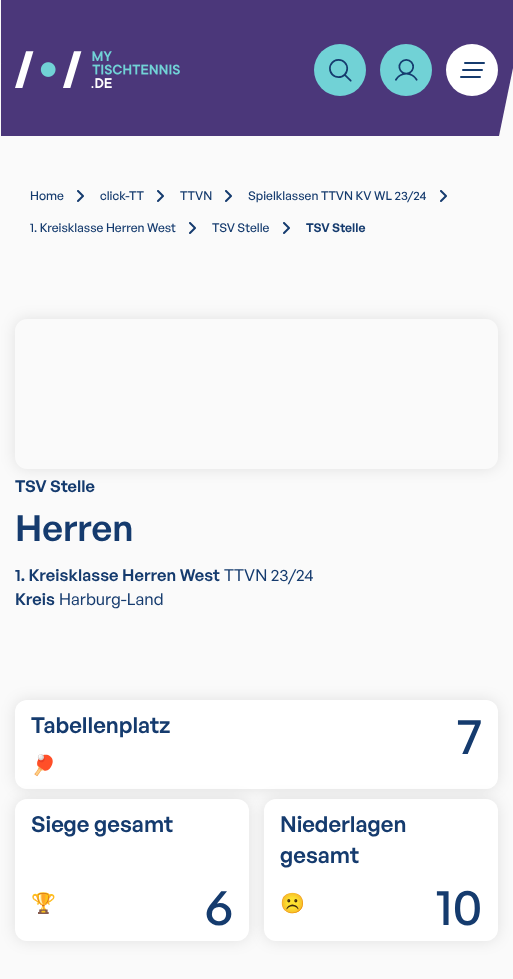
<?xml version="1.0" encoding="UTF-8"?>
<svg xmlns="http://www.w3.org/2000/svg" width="513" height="979">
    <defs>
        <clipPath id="clip1"><rect x="1" y="0" width="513" height="136"/></clipPath>
        <clipPath id="clip2"><path d="M 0 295 H 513 V 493 H 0 Z M 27 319 H 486 C 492.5 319 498 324.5 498 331 V 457 C 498 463.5 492.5 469 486 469 H 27 C 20.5 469 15 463.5 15 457 V 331 C 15 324.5 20.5 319 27 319 Z" clip-rule="evenodd"/></clipPath>
        <filter id="blur1" x="-50%" y="-200%" width="200%" height="500%"><feGaussianBlur stdDeviation="7.5"/></filter>
    </defs>
    <rect width="100%" height="100%" fill="#FAFAFA"/>
    <g clip-path="url(#clip1)">
        <path d="M 14 0 H 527 L 499 136 H -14 Z" fill="#4B377A"/>
    </g>
    <rect x="1" y="0" width="13" height="63" fill="#4B377A"/>
    <image x="15" y="51" width="165" height="37" href="img_01.png"/>
    <circle cx="340" cy="70" r="26" fill="#71D2D6"/>
    <image x="329" y="59" width="23" height="23" href="img_02.png"/>
    <circle cx="406" cy="70" r="26" fill="#71D2D6"/>
    <image x="395" y="59" width="23" height="22" href="img_03.png"/>
    <circle cx="472" cy="70" r="26" fill="#FFFFFF"/>
    <rect x="464" y="62" width="21" height="2" rx="1" fill="#153B6E"/>
    <rect x="462" y="69" width="21" height="2" rx="1" fill="#153B6E"/>
    <rect x="460" y="76" width="21" height="2" rx="1" fill="#153B6E"/>
    <text x="30" y="200" font-family="General Sans" font-size="12.1" font-weight="500" fill="#153B6E">Home</text>
    <image x="77" y="190" width="7" height="12" href="img_04.png"/>
    <text x="100" y="200" font-family="General Sans" font-size="12.1" font-weight="500" fill="#153B6E">click-TT</text>
    <image x="157" y="190" width="7" height="12" href="img_04.png"/>
    <text x="180" y="200" font-family="General Sans" font-size="12.1" font-weight="500" fill="#153B6E">TTVN</text>
    <image x="225" y="190" width="7" height="12" href="img_04.png"/>
    <text x="248" y="200" font-family="General Sans" font-size="12.1" font-weight="500" fill="#153B6E">Spielklassen TTVN KV WL 23/24</text>
    <image x="440" y="190" width="7" height="12" href="img_04.png"/>
    <text x="30" y="232" font-family="General Sans" font-size="12.1" font-weight="500" fill="#153B6E">1. Kreisklasse Herren West</text>
    <image x="189" y="222" width="7" height="12" href="img_04.png"/>
    <text x="212" y="232" font-family="General Sans" font-size="12.1" font-weight="500" fill="#153B6E">TSV Stelle</text>
    <image x="283" y="222" width="7" height="12" href="img_04.png"/>
    <text x="306" y="232" font-family="General Sans" font-size="12.1" font-weight="600" fill="#153B6E">TSV Stelle</text>
    <g clip-path="url(#clip2)">
        <rect x="15" y="319" width="483" height="150" rx="12" fill="#000000" fill-opacity="0.1" filter="url(#blur1)"/>
    </g>
    <text x="15" y="492" font-family="General Sans" font-size="16.25" font-weight="600" fill="#153B6E">TSV Stelle</text>
    <text x="15" y="541" font-family="'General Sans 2'" font-size="36" font-weight="600" fill="#153B6E">Herren</text>
    <text x="15" y="581" font-family="'General Sans 2'" font-size="16.4" font-weight="600" letter-spacing="0.05" fill="#153B6E">1. Kreisklasse Herren West</text>
    <text x="224" y="581" font-family="General Sans" font-size="16.4" letter-spacing="0.05" fill="#153B6E">TTVN 23/24</text>
    <text x="15" y="605" font-family="'General Sans 2'" font-size="16.4" font-weight="600" letter-spacing="0.05" fill="#153B6E">Kreis</text>
    <text x="59" y="605" font-family="General Sans" font-size="16.4" letter-spacing="0.05" fill="#153B6E">Harburg-Land</text>
    <rect x="15" y="700" width="483" height="89" rx="12" fill="#000000" fill-opacity="0.1" filter="url(#blur1)"/>
    <rect x="15" y="700" width="483" height="89" rx="12" fill="#FFFFFF"/>
    <text x="31" y="733" font-family="'General Sans 2'" font-size="22" font-weight="600" fill="#153B6E">Tabellenplatz</text>
    <text x="457" y="754" font-family="'General Sans 2'" font-size="50" font-weight="500" fill="#153B6E">7</text>
    <text x="31" y="772" font-family="Noto Color Emoji" font-size="20" fill="#153B6E">🏓</text>
    <rect x="15" y="799" width="234" height="142" rx="12" fill="#000000" fill-opacity="0.1" filter="url(#blur1)"/>
    <rect x="15" y="799" width="234" height="142" rx="12" fill="#FFFFFF"/>
    <text x="31" y="832" font-family="'General Sans 2'" font-size="22" font-weight="600" fill="#153B6E">Siege gesamt</text>
    <text x="31" y="910" font-family="Noto Color Emoji" font-size="20" fill="#153B6E">🏆</text>
    <text x="205" y="925" font-family="'General Sans 2'" font-size="50" font-weight="500" fill="#153B6E">6</text>
    <rect x="264" y="799" width="234" height="142" rx="12" fill="#000000" fill-opacity="0.1" filter="url(#blur1)"/>
    <rect x="264" y="799" width="234" height="142" rx="12" fill="#FFFFFF"/>
    <text font-family="'General Sans 2'" font-size="22" font-weight="600" fill="#153B6E">
        <tspan x="280" y="832">Niederlagen</tspan>
        <tspan x="280" y="863">gesamt</tspan>
    </text>
    <text x="280" y="910" font-family="Noto Color Emoji" font-size="20" fill="#153B6E">☹️</text>
    <text x="436" y="925" font-family="'General Sans 2'" font-size="50" font-weight="500" fill="#153B6E">10</text>
</svg>
